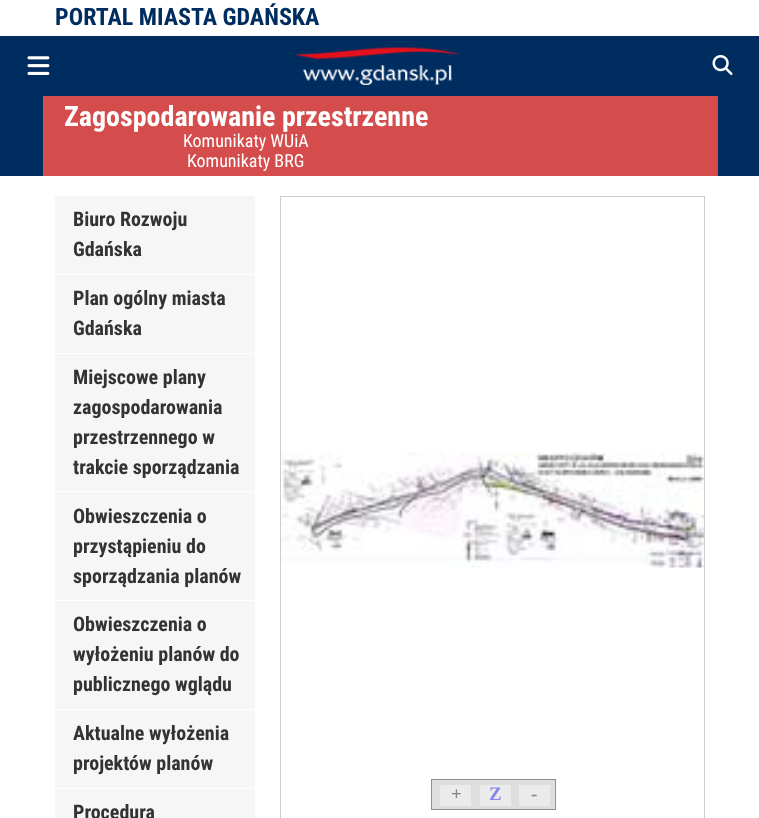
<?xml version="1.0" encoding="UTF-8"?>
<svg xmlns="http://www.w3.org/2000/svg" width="759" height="818">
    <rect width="100%" height="100%" fill="#FFFFFF"/>
    <text x="55" y="25" font-family="Roboto Condensed" font-size="24" font-weight="700" fill="#002D60">PORTAL MIASTA GDAŃSKA</text>
    <rect x="0" y="36" width="759" height="140" fill="#002D60"/>
    <image x="27" y="56" width="23" height="19" href="img_01.png"/>
    <image x="295" y="47" width="165" height="38" href="img_02.png"/>
    <image x="712" y="55" width="21" height="20" href="img_03.png"/>
    <rect x="43" y="96" width="675" height="80" fill="#D44C4C"/>
    <text x="64" y="126" font-family="Roboto Condensed" font-size="28" font-weight="700" fill="#FFFFFF">Zagospodarowanie przestrzenne</text>
    <text x="183" y="147" font-family="Roboto Condensed" font-size="18" fill="#FFFFFF">Komunikaty WUiA</text>
    <text x="187" y="167" font-family="Roboto Condensed" font-size="18" fill="#FFFFFF">Komunikaty BRG</text>
    <rect x="55" y="196" width="200" height="78" fill="#F6F6F6"/>
    <text font-family="Roboto Condensed" font-size="20" font-weight="700" fill="#333333">
        <tspan x="73" y="226">Biuro Rozwoju</tspan>
        <tspan x="73" y="256">Gdańska</tspan>
    </text>
    <rect x="55" y="275" width="200" height="78" fill="#F6F6F6"/>
    <text font-family="Roboto Condensed" font-size="20" font-weight="700" fill="#333333">
        <tspan x="73" y="305">Plan ogólny miasta</tspan>
        <tspan x="73" y="335">Gdańska</tspan>
    </text>
    <rect x="55" y="354" width="200" height="137" fill="#F6F6F6"/>
    <text font-family="Roboto Condensed" font-size="20" font-weight="700" fill="#333333">
        <tspan x="73" y="384">Miejscowe plany</tspan>
        <tspan x="73" y="414">zagospodarowania</tspan>
        <tspan x="73" y="444">przestrzennego w</tspan>
        <tspan x="73" y="474">trakcie sporządzania</tspan>
    </text>
    <rect x="55" y="492" width="200" height="108" fill="#F6F6F6"/>
    <text font-family="Roboto Condensed" font-size="20" font-weight="700" fill="#333333">
        <tspan x="73" y="523">Obwieszczenia o</tspan>
        <tspan x="73" y="553">przystąpieniu do</tspan>
        <tspan x="73" y="583">sporządzania planów</tspan>
    </text>
    <rect x="55" y="601" width="200" height="108" fill="#F6F6F6"/>
    <text font-family="Roboto Condensed" font-size="20" font-weight="700" fill="#333333">
        <tspan x="73" y="631">Obwieszczenia o</tspan>
        <tspan x="73" y="661">wyłożeniu planów do</tspan>
        <tspan x="73" y="691">publicznego wglądu</tspan>
    </text>
    <rect x="55" y="710" width="200" height="78" fill="#F6F6F6"/>
    <text font-family="Roboto Condensed" font-size="20" font-weight="700" fill="#333333">
        <tspan x="73" y="740">Aktualne wyłożenia</tspan>
        <tspan x="73" y="770">projektów planów</tspan>
    </text>
    <rect x="55" y="789" width="200" height="29" fill="#F6F6F6"/>
    <text x="73" y="819" font-family="Roboto Condensed" font-size="20" font-weight="700" fill="#333333">Procedura</text>
    <rect x="280.5" y="196.5" width="424" height="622" fill="none" stroke="#CCCCCC"/>
    <image x="281" y="452" width="423" height="116" href="img_04.png"/>
    <rect x="431.5" y="779.5" width="124" height="30" fill="#DEDEDE" stroke="#8F8F8F"/>
    <rect x="440" y="785" width="31" height="21" fill="#EBEBEB"/>
    <text x="451" y="800" font-family="Liberation Serif" font-size="19" font-weight="700" fill="#858585">+</text>
    <rect x="480" y="785" width="31" height="21" fill="#EBEBEB"/>
    <text x="489" y="800" font-family="Liberation Serif" font-size="19" font-weight="700" fill="#8585EB">Z</text>
    <rect x="519" y="785" width="31" height="21" fill="#EBEBEB"/>
    <text x="531" y="800" font-family="Liberation Serif" font-size="19" font-weight="700" fill="#858585">-</text>
</svg>
